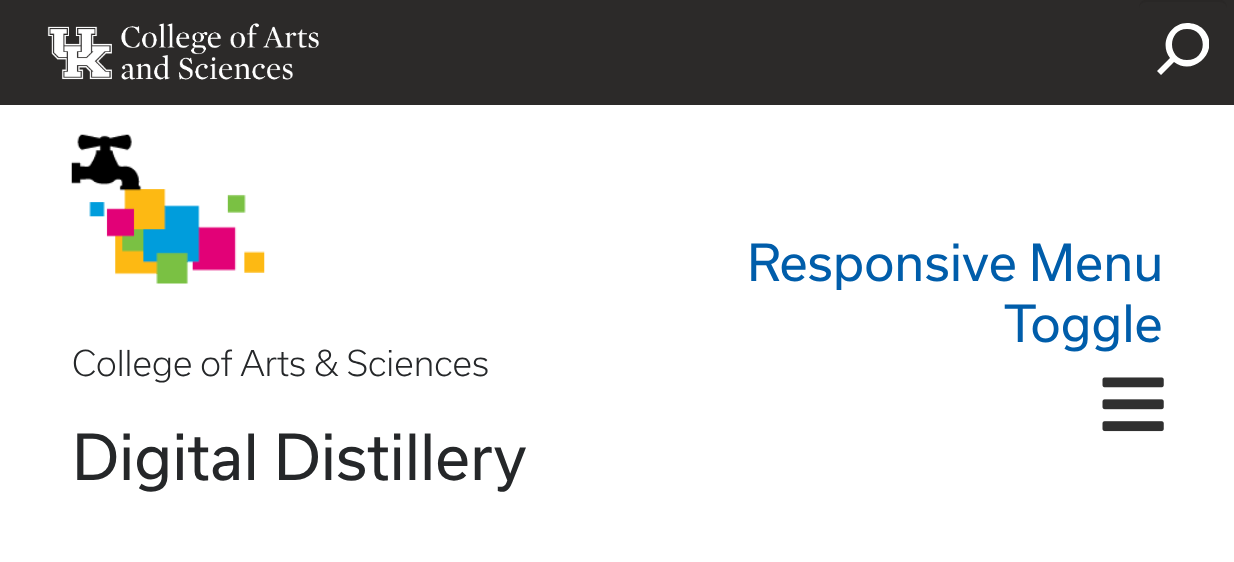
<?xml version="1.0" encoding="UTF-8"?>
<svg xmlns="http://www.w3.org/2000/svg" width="1234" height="562">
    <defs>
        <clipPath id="clip1"><rect x="1157" y="23" width="52" height="52"/></clipPath>
    </defs>
    <rect width="100%" height="100%" fill="#FFFFFF"/>
    <rect x="0" y="0" width="1234" height="105" fill="#2C2A29"/>
    <image x="47" y="23" width="272" height="57" href="img_01.png"/>
    <path d="M 1146 2 H 1220 C 1224 2 1227 5 1227 9 C 1227 -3 1217 0 1208 0 H 1158 C 1149 0 1139 -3 1139 9 C 1139 5 1142 2 1146 2 Z" fill="#292726"/>
    <g clip-path="url(#clip1)">
        <path d="M 1187 23 C 1170 23 1159 44 1170 58 L 1157 71 L 1161 75 L 1174 62 C 1195 78 1222 48 1203 29 C 1199 25 1193 23 1187 23 Z M 1187 60 C 1167 60 1167 29 1187 29 C 1208 29 1208 60 1187 60 Z" fill="#FFFFFF"/>
    </g>
    <text x="747" y="281" font-family="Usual" font-size="49" fill="#005DAA">Responsive Menu</text>
    <text x="1004" y="342" font-family="Usual" font-size="49" fill="#005DAA">Toggle</text>
    <image x="1102" y="377" width="62" height="55" href="img_02.png"/>
    <image x="71" y="134" width="194" height="150" href="img_03.png"/>
    <text x="72" y="376" font-family="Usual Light" font-size="34" font-weight="300" fill="#252729">College of Arts &amp; Sciences</text>
    <text x="72" y="480" font-family="Usual" font-size="60.5" fill="#252729">Digital Distillery</text>
</svg>
